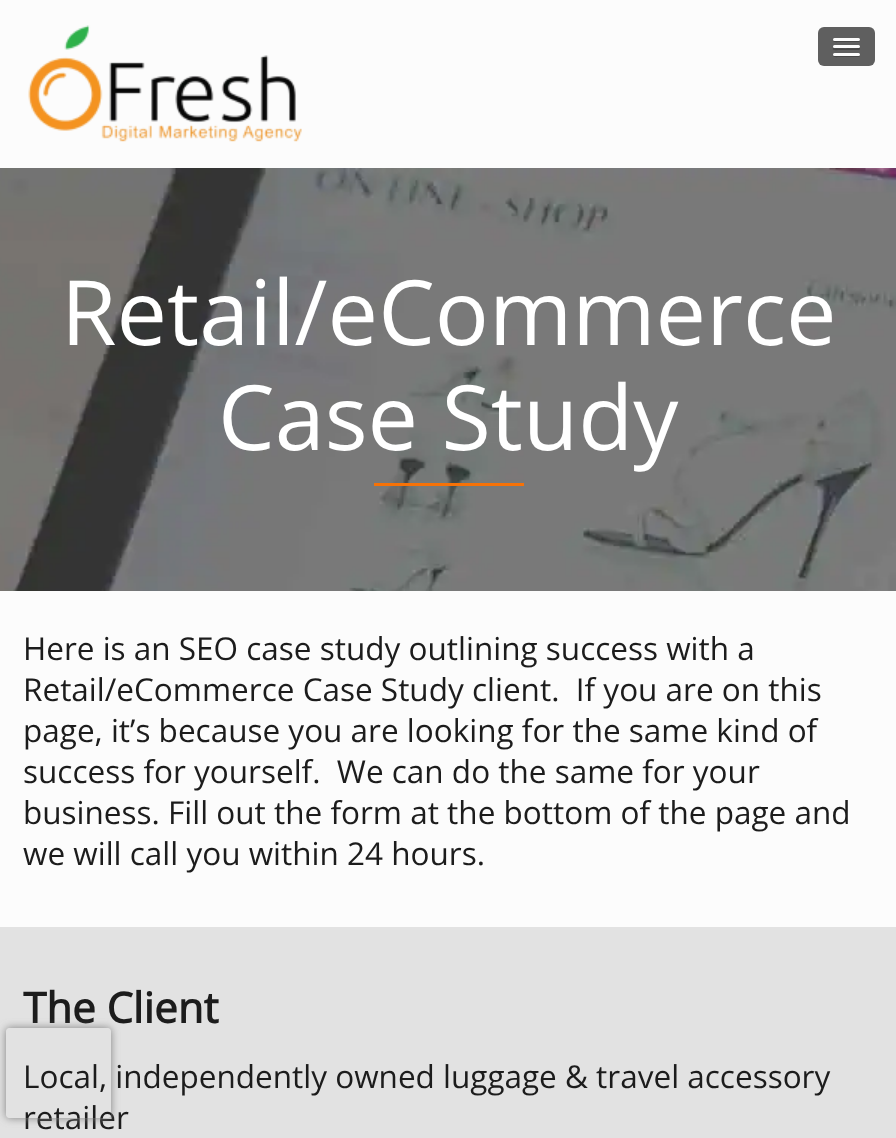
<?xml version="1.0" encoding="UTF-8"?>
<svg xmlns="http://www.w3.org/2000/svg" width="896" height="1138">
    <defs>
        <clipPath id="clip1"><path d="M 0 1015 H 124 V 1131 H 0 Z M 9 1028 H 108 C 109.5 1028 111 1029.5 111 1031 V 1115 C 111 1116.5 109.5 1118 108 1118 H 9 C 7.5 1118 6 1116.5 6 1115 V 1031 C 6 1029.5 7.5 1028 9 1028 Z" clip-rule="evenodd"/></clipPath>
        <filter id="blur1" x="-50%" y="-200%" width="200%" height="500%"><feGaussianBlur stdDeviation="4"/></filter>
    </defs>
    <rect width="100%" height="100%" fill="#FCFCFC"/>
    <image x="28" y="25" width="274" height="117" href="img_01.png"/>
    <rect x="818" y="27" width="57" height="39" rx="6" fill="#5F5F5F"/>
    <path d="M 833 40 C 832.5 43 838 42 838.5 42 H 858.5 C 860 42 860.5 40 859.5 39.5 L 858.5 40.5 C 857 41 833.5 40.5 833 40 Z" fill="#474747"/>
    <rect x="833" y="38" width="27" height="3" rx="1.5" fill="#FCFCFC"/>
    <path d="M 833 48 C 831.5 51 838.5 50 838.5 50 H 859 C 860 49.5 860.5 48 859.5 47 L 858 48 C 856 48.5 834 48.5 833 48 Z" fill="#474747"/>
    <rect x="833" y="45" width="27" height="3" rx="1.5" fill="#FCFCFC"/>
    <path d="M 833 55 C 832.5 58 838 57 838.5 57 H 858.5 C 860 57 860.5 55 859.5 54.5 L 858.5 55.5 C 857 56 833.5 55.5 833 55 Z" fill="#474747"/>
    <rect x="833" y="53" width="27" height="3" rx="1.5" fill="#FCFCFC"/>
    <image x="0" y="168" width="896" height="423" href="img_02.png"/>
    <text x="61" y="345" font-family="Open Sans" font-size="90" fill="#FFFFFF">Retail/eCommerce</text>
    <text x="218" y="450" font-family="Open Sans" font-size="90" fill="#FFFFFF">Case Study</text>
    <rect x="374" y="483" width="150" height="3" fill="#F67207"/>
    <text font-family="Open Sans" font-size="31.5" fill="#1C1C1C" xml:space="preserve"><tspan x="23" y="660">Here is an SEO case study outlining success with a</tspan><tspan x="23" y="701">Retail/eCommerce Case Study client.  If you are on this</tspan><tspan x="23" y="742">page, it’s because you are looking for the same kind of</tspan><tspan x="23" y="783">success for yourself.  We can do the same for your</tspan><tspan x="23" y="824">business. Fill out the form at the bottom of the page and</tspan><tspan x="23" y="865">we will call you within 24 hours.</tspan></text>
    <rect x="0" y="927" width="896" height="211" fill="#E2E2E2"/>
    <text x="23" y="1023" font-family="Open Sans" font-size="42" font-weight="700" fill="#1C1C1C">The Client</text>
    <text font-family="Open Sans" font-size="31.5" fill="#1C1C1C">
        <tspan x="23" y="1088">Local, independently owned luggage &amp; travel accessory</tspan>
        <tspan x="23" y="1129">retailer</tspan>
    </text>
    <g clip-path="url(#clip1)">
        <rect x="6" y="1028" width="105" height="90" rx="3" fill="#808080" filter="url(#blur1)"/>
    </g>
</svg>
